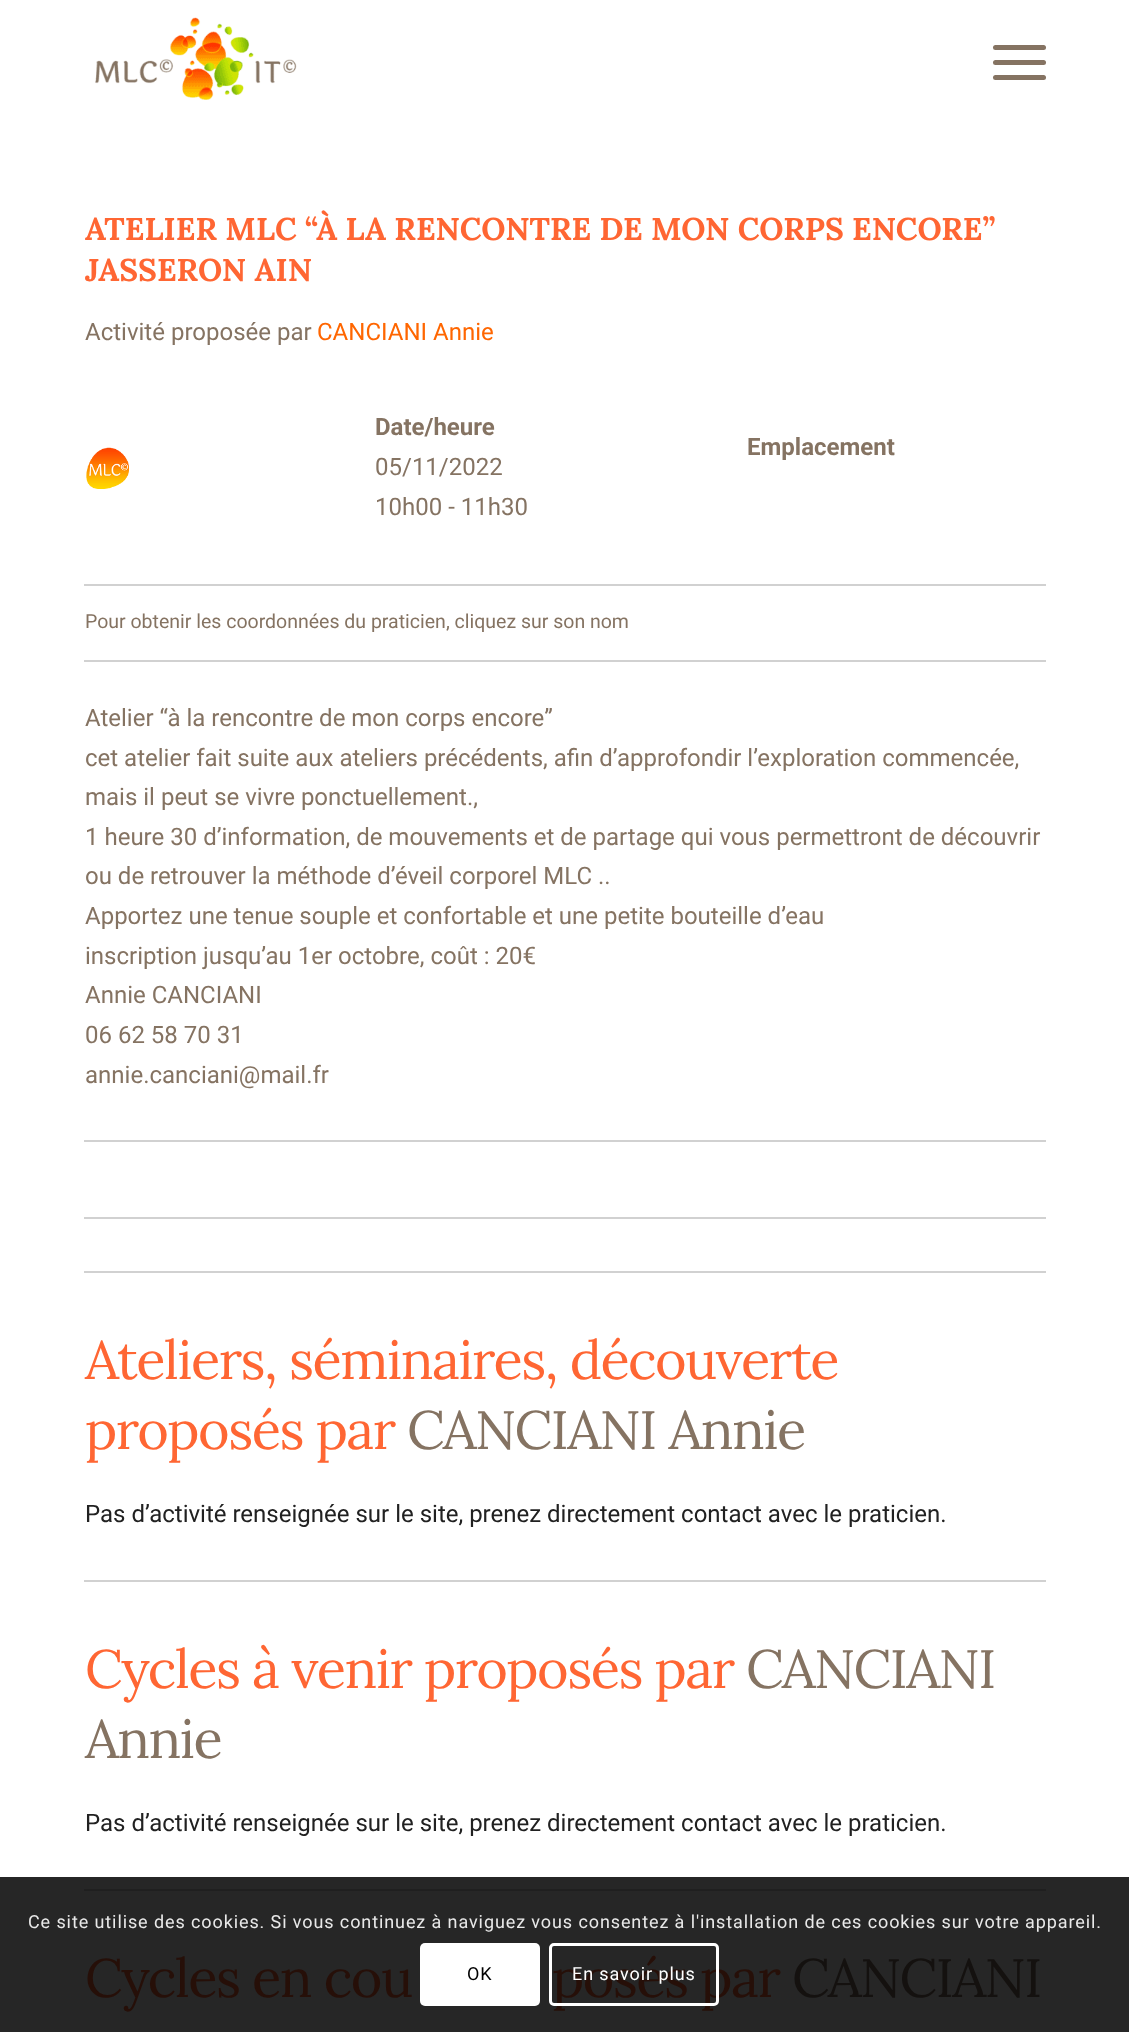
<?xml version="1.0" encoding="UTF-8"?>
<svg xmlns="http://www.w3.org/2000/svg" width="1129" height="2032">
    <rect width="100%" height="100%" fill="#FFFFFF"/>
    <rect x="0" y="1877" width="1129" height="155" fill="#262626"/>
    <image x="95" y="17" width="202" height="83" href="img_01.png"/>
    <rect x="993" y="60" width="53" height="5" rx="2.5" fill="#857362"/>
    <rect x="993" y="45" width="53" height="5" rx="2.5" fill="#857362"/>
    <rect x="993" y="75" width="53" height="5" rx="2.5" fill="#857362"/>
    <text font-family="Lora" font-size="31.5" font-weight="700" fill="#FF6633">
        <tspan x="85" y="240">ATELIER MLC “À LA RENCONTRE DE MON CORPS ENCORE”</tspan>
        <tspan x="85" y="281">JASSERON AIN</tspan>
    </text>
    <text x="85" y="340" font-family="Roboto" font-size="24" fill="#857362">Activité proposée par</text>
    <text x="317" y="340" font-family="Roboto" font-size="24" fill="#FF6600">CANCIANI Annie</text>
    <image x="86" y="447" width="43" height="42" href="img_02.png"/>
    <text x="375" y="435" font-family="Roboto" font-size="24" font-weight="700" fill="#857362">Date/heure</text>
    <text font-family="Roboto" font-size="24" fill="#857362">
        <tspan x="375" y="475">05/11/2022</tspan>
        <tspan x="375" y="515">10h00 - 11h30</tspan>
    </text>
    <rect x="84" y="584" width="962" height="2" fill="#D1D1D1"/>
    <text x="747" y="455" font-family="Roboto" font-size="24" font-weight="700" fill="#857362">Emplacement</text>
    <rect x="84" y="660" width="962" height="2" fill="#D1D1D1"/>
    <text x="85" y="628" font-family="Roboto" font-size="19.5" fill="#857362">Pour obtenir les coordonnées du praticien, cliquez sur son nom</text>
    <text font-family="Roboto" font-size="24" fill="#857362">
        <tspan x="85" y="726">Atelier “à la rencontre de mon corps encore”</tspan>
        <tspan x="85" y="766">cet atelier fait suite aux ateliers précédents, afin d’approfondir l’exploration commencée,</tspan>
        <tspan x="85" y="805">mais il peut se vivre ponctuellement.,</tspan>
        <tspan x="85" y="845">1 heure 30 d’information, de mouvements et de partage qui vous permettront de découvrir</tspan>
        <tspan x="85" y="884">ou de retrouver la méthode d’éveil corporel MLC ..</tspan>
        <tspan x="85" y="924">Apportez une tenue souple et confortable et une petite bouteille d’eau</tspan>
        <tspan x="85" y="964">inscription jusqu’au 1er octobre, coût : 20€</tspan>
        <tspan x="85" y="1003">Annie CANCIANI</tspan>
        <tspan x="85" y="1043">06 62 58 70 31</tspan>
        <tspan x="85" y="1083">annie.canciani@mail.fr</tspan>
    </text>
    <rect x="84" y="1140" width="962" height="2" fill="#D1D1D1"/>
    <rect x="84" y="1217" width="962" height="2" fill="#D1D1D1"/>
    <rect x="84" y="1271" width="962" height="2" fill="#D1D1D1"/>
    <text font-family="Lora" font-size="54" letter-spacing="-1.5" fill="#FF6633">
        <tspan x="85" y="1379">Ateliers, séminaires, découverte</tspan>
        <tspan x="85" y="1449">proposés par</tspan>
    </text>
    <text x="407" y="1449" font-family="Lora" font-size="54" letter-spacing="-1.5" fill="#857362">CANCIANI Annie</text>
    <text x="85" y="1522" font-family="Roboto" font-size="24" fill="#212121">Pas d’activité renseignée sur le site, prenez directement contact avec le praticien.</text>
    <rect x="84" y="1580" width="962" height="2" fill="#D1D1D1"/>
    <text x="85" y="1688" font-family="Lora" font-size="54" letter-spacing="-1.5" fill="#FF6633">Cycles à venir proposés par</text>
    <text x="746" y="1688" font-family="Lora" font-size="54" letter-spacing="-1.5" fill="#857362">CANCIANI</text>
    <text x="85" y="1758" font-family="Lora" font-size="54" letter-spacing="-1.5" fill="#857362">Annie</text>
    <text x="85" y="1831" font-family="Roboto" font-size="24" fill="#212121">Pas d’activité renseignée sur le site, prenez directement contact avec le praticien.</text>
    <rect x="84" y="1889" width="962" height="2" fill="#1F1F1F"/>
    <text x="85" y="1997" font-family="Lora" font-size="54" letter-spacing="-1.5" fill="#260F08">Cycles en cou</text>
    <text x="552" y="1997" font-family="Lora" font-size="54" letter-spacing="-1.5" fill="#260F08">posés par</text>
    <text x="792" y="1997" font-family="Lora" font-size="54" letter-spacing="-1.5" fill="#14110F">CANCIANI</text>
    <text x="28" y="1928" font-family="Roboto" font-size="18" letter-spacing="0.9" fill="#E9E9E9">Ce site utilise des cookies. Si vous continuez à naviguez vous consentez à l'installation de ces cookies sur votre appareil.</text>
    <rect x="420" y="1943" width="120" height="63" rx="5" fill="#FFFFFF"/>
    <text x="467" y="1980" font-family="Roboto" font-size="18" letter-spacing="0.9" fill="#000000">OK</text>
    <rect x="550.5" y="1944.5" width="167" height="60" rx="3.5" fill="none" stroke="#FFFFFF" stroke-width="3"/>
    <text x="572" y="1980" font-family="Roboto" font-size="18" letter-spacing="0.9" fill="#FFFFFF">En savoir plus</text>
</svg>
